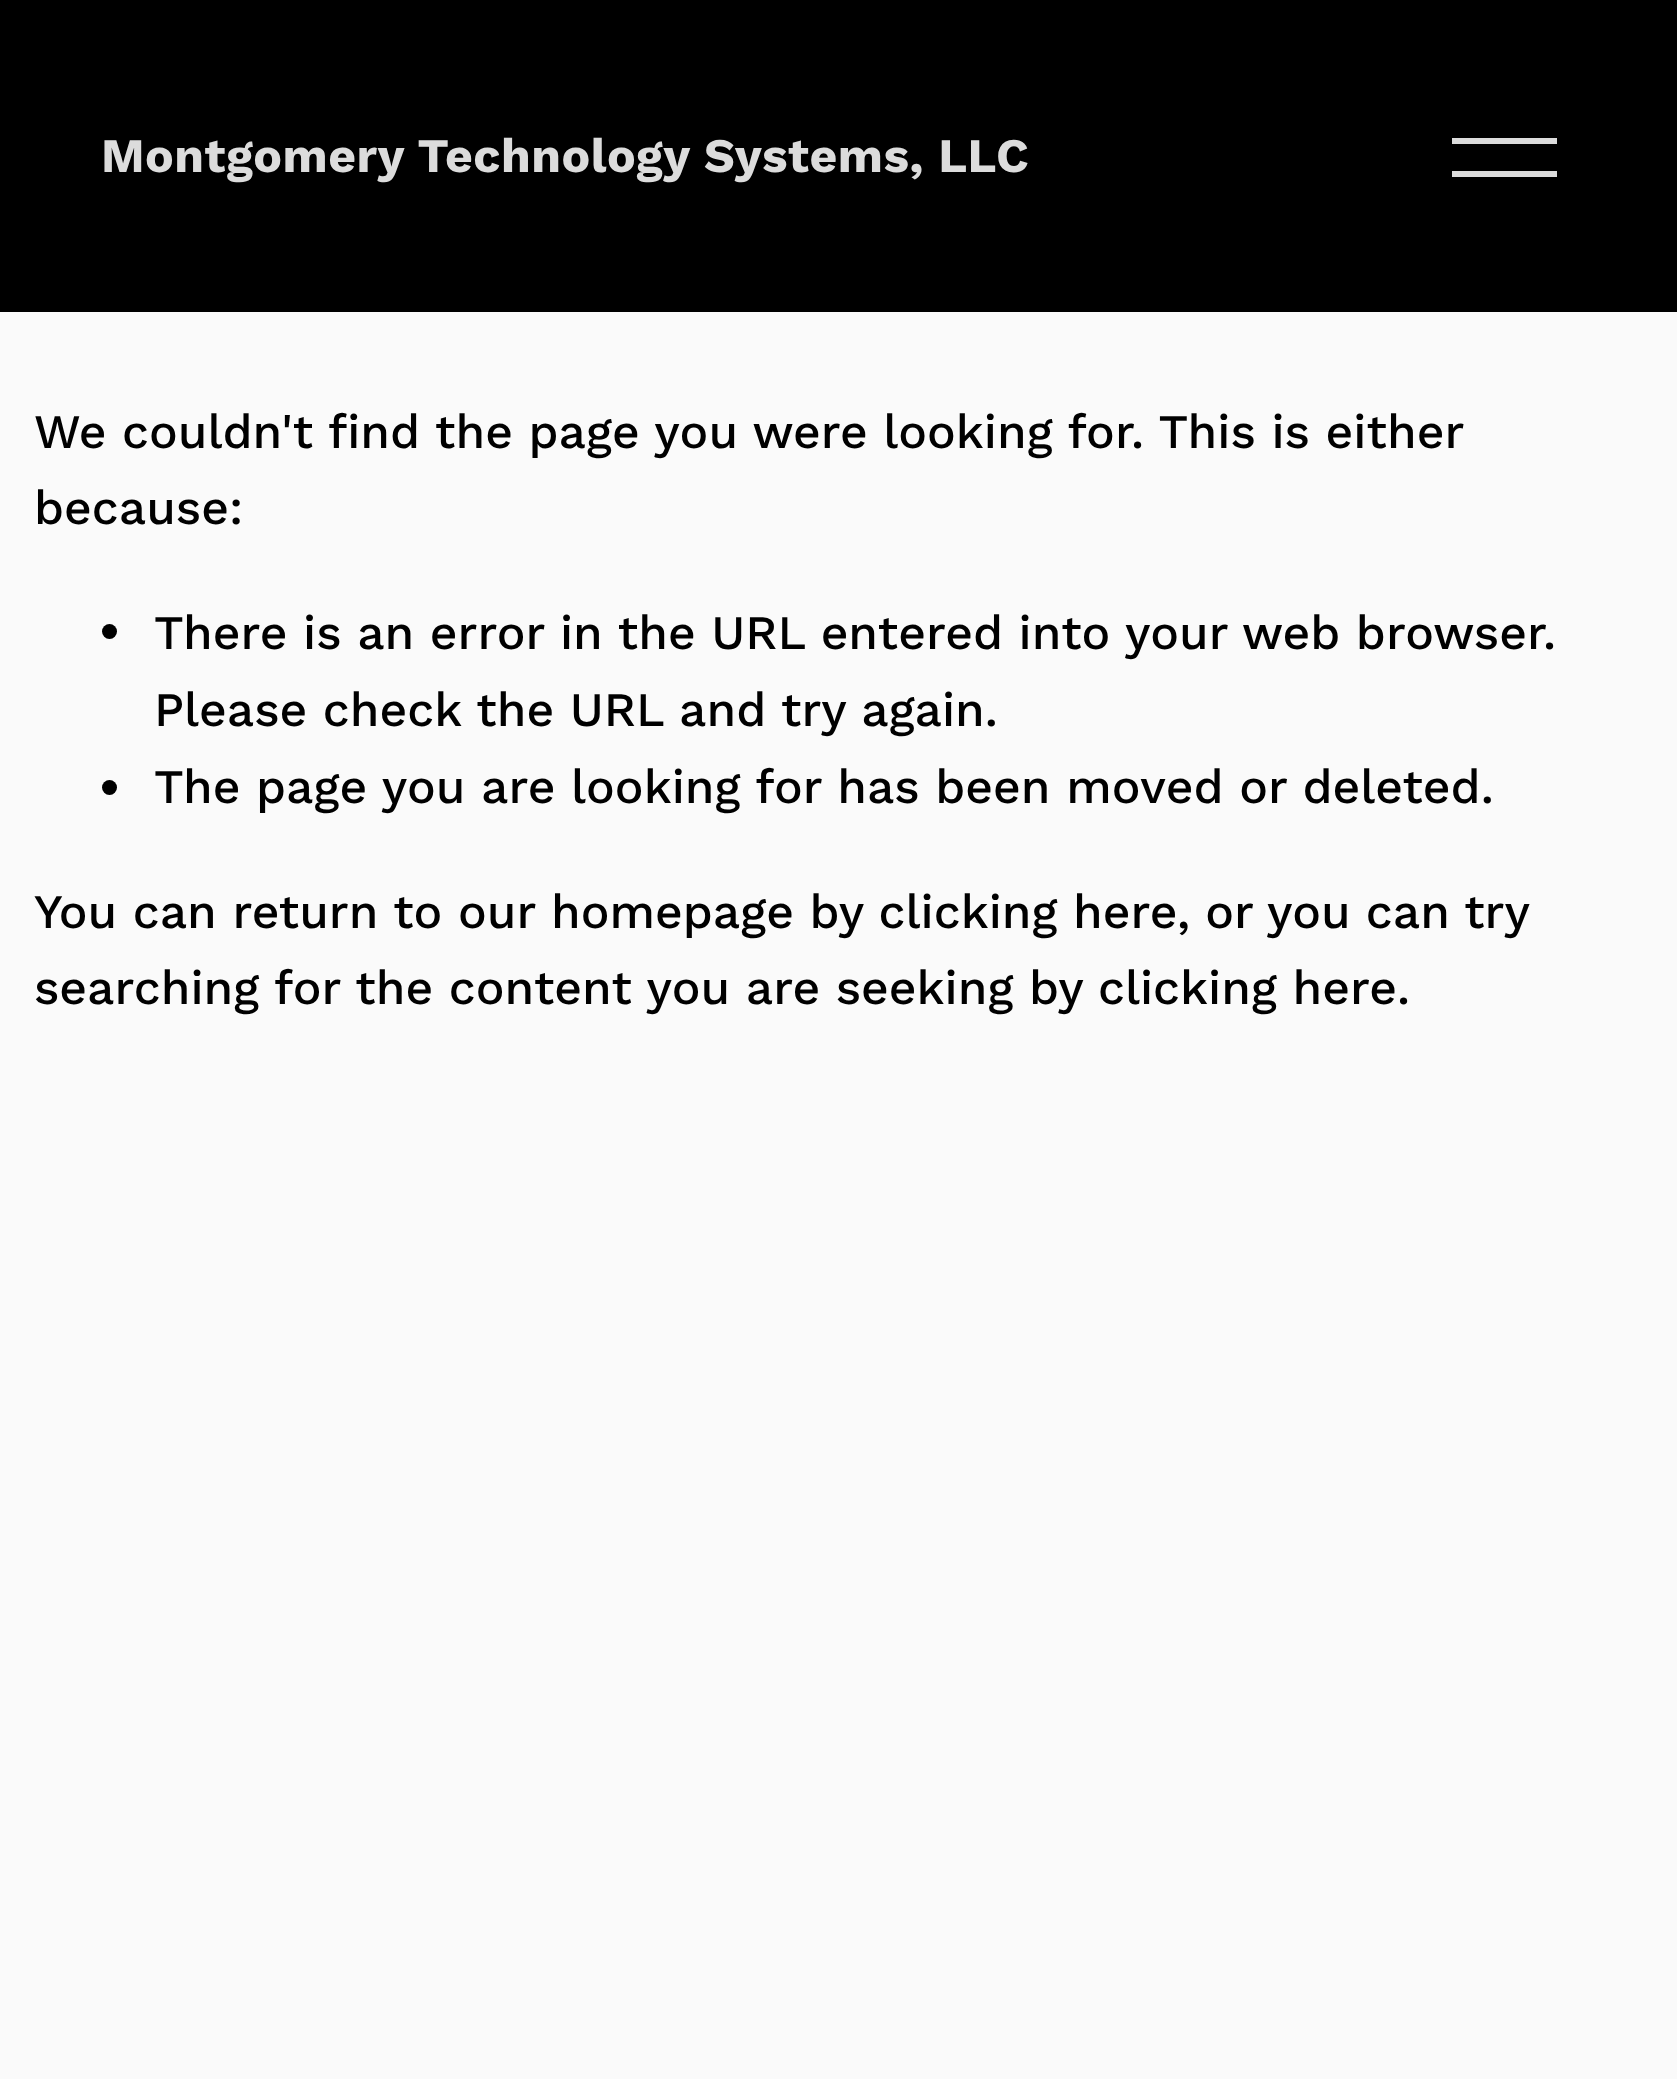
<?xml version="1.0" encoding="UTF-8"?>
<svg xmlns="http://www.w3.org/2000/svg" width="1677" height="2079">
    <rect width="100%" height="100%" fill="#FAFAFA"/>
    <rect x="0" y="0" width="1677" height="312" fill="#000000"/>
    <text x="101" y="172" font-family="Work Sans" font-size="48" font-weight="700" letter-spacing="0.5" fill="#DCDCDC">Montgomery Technology Systems, LLC</text>
    <rect x="1452" y="138" width="105" height="6" fill="#DCDCDC"/>
    <rect x="1452" y="171" width="105" height="6" fill="#DCDCDC"/>
    <text font-family="Work Sans" font-size="48" font-weight="500" fill="#000000">
        <tspan x="34" y="448">We couldn't find the page you were looking for. This is either</tspan>
        <tspan x="34" y="524">because:</tspan>
    </text>
    <circle cx="109.5" cy="631.5" r="7.5" fill="#000000"/>
    <text font-family="Work Sans" font-size="48" font-weight="500" fill="#000000">
        <tspan x="154" y="649">There is an error in the URL entered into your web browser.</tspan>
        <tspan x="154" y="726">Please check the URL and try again.</tspan>
    </text>
    <circle cx="109.5" cy="787.5" r="7.5" fill="#000000"/>
    <text x="154" y="803" font-family="Work Sans" font-size="48" font-weight="500" fill="#000000">The page you are looking for has been moved or deleted.</text>
    <text x="34" y="928" font-family="Work Sans" font-size="48" font-weight="500" fill="#000000">You can return to our homepage by clicking here</text>
    <text x="1177" y="928" word-spacing="-0.5" font-family="Work Sans" font-size="48" font-weight="500" fill="#000000">, or you can try</text>
    <text x="34" y="1004" font-family="Work Sans" font-size="48" font-weight="500" fill="#000000">searching for the content you are seeking by clicking here.</text>
</svg>
